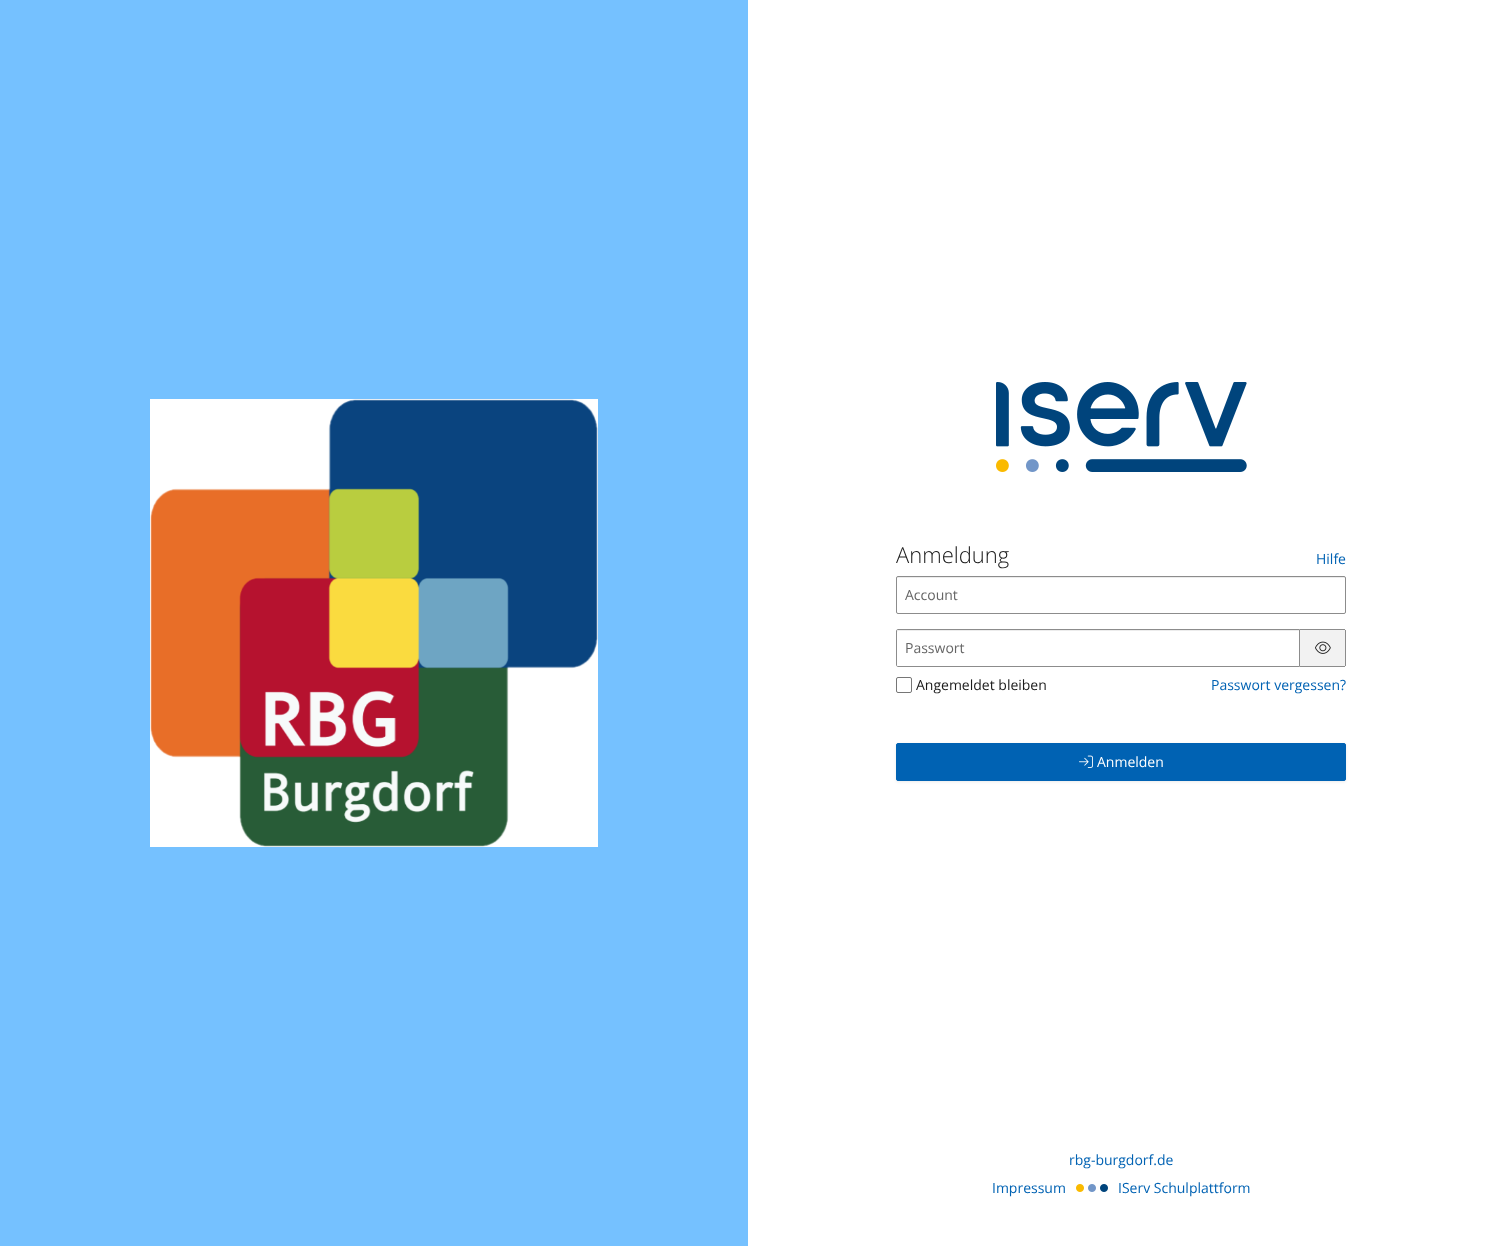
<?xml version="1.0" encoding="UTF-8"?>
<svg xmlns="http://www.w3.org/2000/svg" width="1495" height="1246">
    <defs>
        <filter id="blur1" x="-50%" y="-200%" width="200%" height="500%"><feGaussianBlur stdDeviation="1.5"/></filter>
    </defs>
    <rect width="100%" height="100%" fill="#FFFFFF"/>
    <rect x="0" y="0" width="748" height="1246" fill="#75C1FF"/>
    <image x="150" y="399" width="448" height="448" href="img_01.png"/>
    <image x="996" y="382" width="251" height="90" href="img_02.png"/>
    <text x="896" y="563" font-family="Open Sans" font-size="22" font-weight="300" fill="#1A1A1A">Anmeldung</text>
    <text x="1316" y="564" font-family="Open Sans" font-size="14" fill="#0062B3">Hilfe</text>
    <path d="M 898 578 H 1344 C 1345 578 1345 578 1345 579 C 1345 578 1345 577 1344 577 H 898 L 897 578 V 579 C 897 578 897 578 898 578 Z" fill="#ECECEC"/>
    <rect x="896.5" y="576.5" width="449" height="37" rx="1.5" fill="none" stroke="#8C8C8C"/>
    <text x="905" y="600" font-family="Open Sans" font-size="14" fill="#666666">Account</text>
    <path d="M 898 631 H 1299 V 630 H 898 C 897 630 897 631 897 632 Z" fill="#ECECEC"/>
    <path d="M 898 629.5 H 1299.5 V 666.5 H 898 C 897 666.5 896.5 666 896.5 665 V 631 C 896.5 630 897 629.5 898 629.5 Z" fill="none" stroke="#8C8C8C"/>
    <text x="905" y="653" font-family="Open Sans" font-size="14" fill="#666666">Passwort</text>
    <path d="M 1300 629 H 1344 C 1345 629 1346 630 1346 631 V 665 C 1346 666 1345 667 1344 667 H 1300 Z" fill="#F2F2F2"/>
    <rect x="1300" y="629" width="45" height="1" fill="#8C8C8C"/>
    <rect x="1345" y="630" width="1" height="36" fill="#8C8C8C"/>
    <rect x="1300" y="666" width="45" height="1" fill="#8C8C8C"/>
    <image x="1315" y="641" width="16" height="13" href="img_03.png"/>
    <rect x="896.5" y="677.5" width="15" height="15" rx="1.5" fill="none" stroke="#767676"/>
    <text x="916" y="690" font-family="Open Sans" font-size="14" fill="#1A1A1A">Angemeldet bleiben</text>
    <text x="1211" y="690" font-family="Open Sans" font-size="14" fill="#0062B3">Passwort vergessen?</text>
    <rect x="896" y="744" width="450" height="38" rx="2" fill="#000000" fill-opacity="0.08" filter="url(#blur1)"/>
    <rect x="896.5" y="743.5" width="449" height="37" rx="1.5" fill="#0062B3" stroke="#0062B3"/>
    <image x="1079" y="755" width="14" height="13" href="img_04.png"/>
    <text x="1097" y="767" font-family="Open Sans" font-size="14" fill="#FFFFFF">Anmelden</text>
    <text x="1069" y="1165" font-family="Open Sans" font-size="14" fill="#0062B3">rbg-burgdorf.de</text>
    <text x="992" y="1193" font-family="Open Sans" font-size="14" fill="#0062B3">Impressum</text>
    <image x="1076" y="1184" width="8" height="8" href="img_05.png"/>
    <image x="1088" y="1184" width="8" height="8" href="img_06.png"/>
    <image x="1100" y="1184" width="8" height="8" href="img_07.png"/>
    <text x="1118" y="1193" font-family="Open Sans" font-size="14" fill="#0062B3">IServ Schulplattform</text>
</svg>
